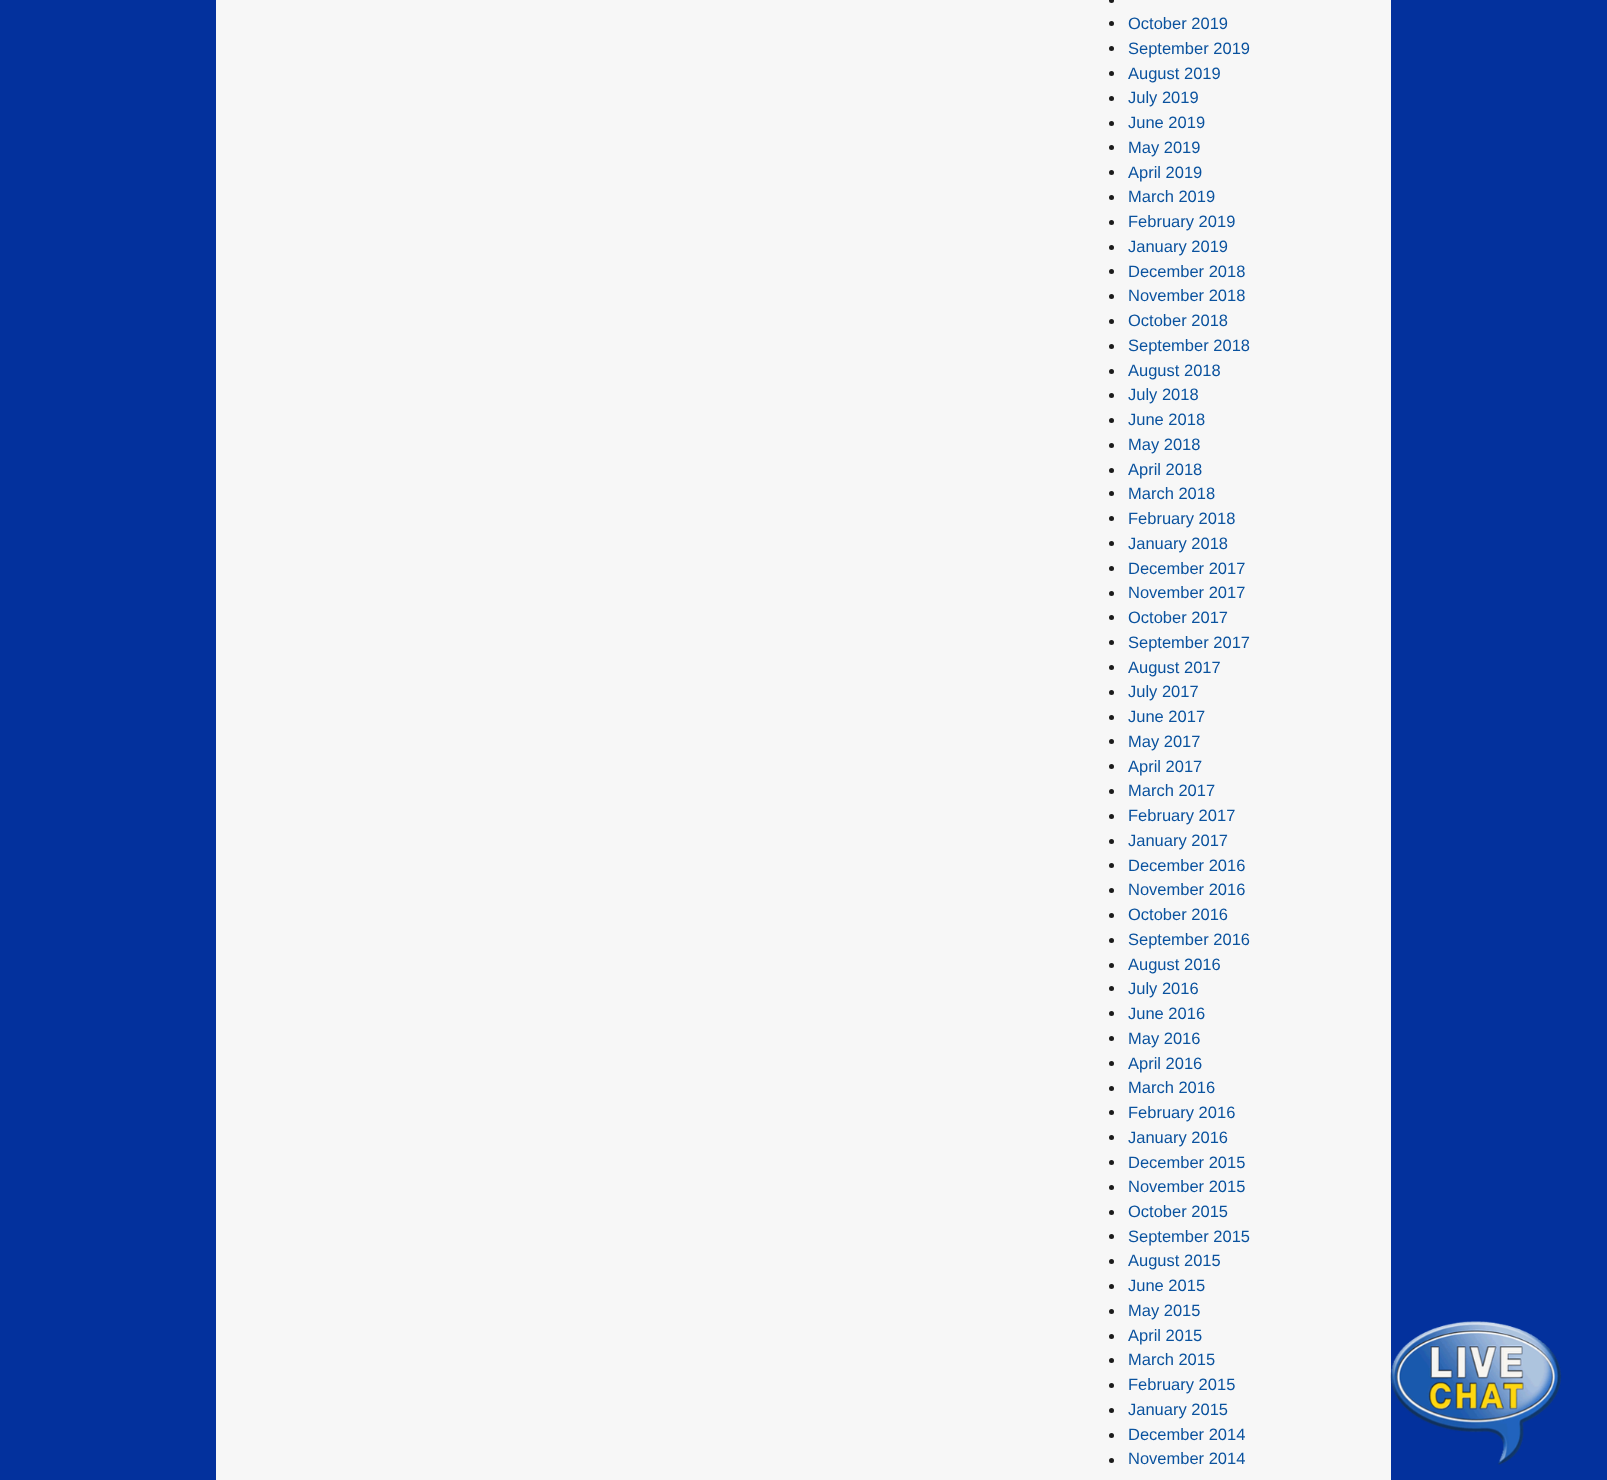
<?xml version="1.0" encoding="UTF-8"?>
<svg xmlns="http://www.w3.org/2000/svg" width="1607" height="1480">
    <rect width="100%" height="100%" fill="#03319D"/>
    <rect x="216" y="0" width="1175" height="1480" fill="#F7F7F7"/>
    <circle cx="1111.5" cy="0.5" r="2.5" fill="#1C1C1C"/>
    <circle cx="1111.5" cy="23.5" r="2.5" fill="#1C1C1C"/>
    <text x="1128" y="29" font-family="Liberation Sans" font-size="16.5" fill="#0A529E">October 2019</text>
    <circle cx="1111.5" cy="48.5" r="2.5" fill="#1C1C1C"/>
    <text x="1128" y="54" font-family="Liberation Sans" font-size="16.5" fill="#0A529E">September 2019</text>
    <circle cx="1111.5" cy="73.5" r="2.5" fill="#1C1C1C"/>
    <text x="1128" y="79" font-family="Liberation Sans" font-size="16.5" fill="#0A529E">August 2019</text>
    <circle cx="1111.5" cy="98.5" r="2.5" fill="#1C1C1C"/>
    <text x="1128" y="103" font-family="Liberation Sans" font-size="16.5" fill="#0A529E">July 2019</text>
    <circle cx="1111.5" cy="123.5" r="2.5" fill="#1C1C1C"/>
    <text x="1128" y="128" font-family="Liberation Sans" font-size="16.5" fill="#0A529E">June 2019</text>
    <circle cx="1111.5" cy="147.5" r="2.5" fill="#1C1C1C"/>
    <text x="1128" y="153" font-family="Liberation Sans" font-size="16.5" fill="#0A529E">May 2019</text>
    <circle cx="1111.5" cy="172.5" r="2.5" fill="#1C1C1C"/>
    <text x="1128" y="178" font-family="Liberation Sans" font-size="16.5" fill="#0A529E">April 2019</text>
    <circle cx="1111.5" cy="197.5" r="2.5" fill="#1C1C1C"/>
    <text x="1128" y="202" font-family="Liberation Sans" font-size="16.5" fill="#0A529E">March 2019</text>
    <circle cx="1111.5" cy="222.5" r="2.5" fill="#1C1C1C"/>
    <text x="1128" y="227" font-family="Liberation Sans" font-size="16.5" fill="#0A529E">February 2019</text>
    <circle cx="1111.5" cy="247.5" r="2.5" fill="#1C1C1C"/>
    <text x="1128" y="252" font-family="Liberation Sans" font-size="16.5" fill="#0A529E">January 2019</text>
    <circle cx="1111.5" cy="271.5" r="2.5" fill="#1C1C1C"/>
    <text x="1128" y="277" font-family="Liberation Sans" font-size="16.5" fill="#0A529E">December 2018</text>
    <circle cx="1111.5" cy="296.5" r="2.5" fill="#1C1C1C"/>
    <text x="1128" y="301" font-family="Liberation Sans" font-size="16.5" fill="#0A529E">November 2018</text>
    <circle cx="1111.5" cy="321.5" r="2.5" fill="#1C1C1C"/>
    <text x="1128" y="326" font-family="Liberation Sans" font-size="16.5" fill="#0A529E">October 2018</text>
    <circle cx="1111.5" cy="346.5" r="2.5" fill="#1C1C1C"/>
    <text x="1128" y="351" font-family="Liberation Sans" font-size="16.5" fill="#0A529E">September 2018</text>
    <circle cx="1111.5" cy="371.5" r="2.5" fill="#1C1C1C"/>
    <text x="1128" y="376" font-family="Liberation Sans" font-size="16.5" fill="#0A529E">August 2018</text>
    <circle cx="1111.5" cy="395.5" r="2.5" fill="#1C1C1C"/>
    <text x="1128" y="400" font-family="Liberation Sans" font-size="16.5" fill="#0A529E">July 2018</text>
    <circle cx="1111.5" cy="420.5" r="2.5" fill="#1C1C1C"/>
    <text x="1128" y="425" font-family="Liberation Sans" font-size="16.5" fill="#0A529E">June 2018</text>
    <circle cx="1111.5" cy="445.5" r="2.5" fill="#1C1C1C"/>
    <text x="1128" y="450" font-family="Liberation Sans" font-size="16.5" fill="#0A529E">May 2018</text>
    <circle cx="1111.5" cy="470.5" r="2.5" fill="#1C1C1C"/>
    <text x="1128" y="475" font-family="Liberation Sans" font-size="16.5" fill="#0A529E">April 2018</text>
    <circle cx="1111.5" cy="493.5" r="2.5" fill="#1C1C1C"/>
    <text x="1128" y="499" font-family="Liberation Sans" font-size="16.5" fill="#0A529E">March 2018</text>
    <circle cx="1111.5" cy="518.5" r="2.5" fill="#1C1C1C"/>
    <text x="1128" y="524" font-family="Liberation Sans" font-size="16.5" fill="#0A529E">February 2018</text>
    <circle cx="1111.5" cy="543.5" r="2.5" fill="#1C1C1C"/>
    <text x="1128" y="549" font-family="Liberation Sans" font-size="16.5" fill="#0A529E">January 2018</text>
    <circle cx="1111.5" cy="568.5" r="2.5" fill="#1C1C1C"/>
    <text x="1128" y="574" font-family="Liberation Sans" font-size="16.5" fill="#0A529E">December 2017</text>
    <circle cx="1111.5" cy="593.5" r="2.5" fill="#1C1C1C"/>
    <text x="1128" y="598" font-family="Liberation Sans" font-size="16.5" fill="#0A529E">November 2017</text>
    <circle cx="1111.5" cy="617.5" r="2.5" fill="#1C1C1C"/>
    <text x="1128" y="623" font-family="Liberation Sans" font-size="16.5" fill="#0A529E">October 2017</text>
    <circle cx="1111.5" cy="642.5" r="2.5" fill="#1C1C1C"/>
    <text x="1128" y="648" font-family="Liberation Sans" font-size="16.5" fill="#0A529E">September 2017</text>
    <circle cx="1111.5" cy="667.5" r="2.5" fill="#1C1C1C"/>
    <text x="1128" y="673" font-family="Liberation Sans" font-size="16.5" fill="#0A529E">August 2017</text>
    <circle cx="1111.5" cy="692.5" r="2.5" fill="#1C1C1C"/>
    <text x="1128" y="697" font-family="Liberation Sans" font-size="16.5" fill="#0A529E">July 2017</text>
    <circle cx="1111.5" cy="717.5" r="2.5" fill="#1C1C1C"/>
    <text x="1128" y="722" font-family="Liberation Sans" font-size="16.5" fill="#0A529E">June 2017</text>
    <circle cx="1111.5" cy="741.5" r="2.5" fill="#1C1C1C"/>
    <text x="1128" y="747" font-family="Liberation Sans" font-size="16.5" fill="#0A529E">May 2017</text>
    <circle cx="1111.5" cy="766.5" r="2.5" fill="#1C1C1C"/>
    <text x="1128" y="772" font-family="Liberation Sans" font-size="16.5" fill="#0A529E">April 2017</text>
    <circle cx="1111.5" cy="791.5" r="2.5" fill="#1C1C1C"/>
    <text x="1128" y="796" font-family="Liberation Sans" font-size="16.5" fill="#0A529E">March 2017</text>
    <circle cx="1111.5" cy="816.5" r="2.5" fill="#1C1C1C"/>
    <text x="1128" y="821" font-family="Liberation Sans" font-size="16.5" fill="#0A529E">February 2017</text>
    <circle cx="1111.5" cy="841.5" r="2.5" fill="#1C1C1C"/>
    <text x="1128" y="846" font-family="Liberation Sans" font-size="16.5" fill="#0A529E">January 2017</text>
    <circle cx="1111.5" cy="865.5" r="2.5" fill="#1C1C1C"/>
    <text x="1128" y="871" font-family="Liberation Sans" font-size="16.5" fill="#0A529E">December 2016</text>
    <circle cx="1111.5" cy="890.5" r="2.5" fill="#1C1C1C"/>
    <text x="1128" y="895" font-family="Liberation Sans" font-size="16.5" fill="#0A529E">November 2016</text>
    <circle cx="1111.5" cy="915.5" r="2.5" fill="#1C1C1C"/>
    <text x="1128" y="920" font-family="Liberation Sans" font-size="16.5" fill="#0A529E">October 2016</text>
    <circle cx="1111.5" cy="940.5" r="2.5" fill="#1C1C1C"/>
    <text x="1128" y="945" font-family="Liberation Sans" font-size="16.5" fill="#0A529E">September 2016</text>
    <circle cx="1111.5" cy="965.5" r="2.5" fill="#1C1C1C"/>
    <text x="1128" y="970" font-family="Liberation Sans" font-size="16.5" fill="#0A529E">August 2016</text>
    <circle cx="1111.5" cy="988.5" r="2.5" fill="#1C1C1C"/>
    <text x="1128" y="994" font-family="Liberation Sans" font-size="16.5" fill="#0A529E">July 2016</text>
    <circle cx="1111.5" cy="1013.5" r="2.5" fill="#1C1C1C"/>
    <text x="1128" y="1019" font-family="Liberation Sans" font-size="16.5" fill="#0A529E">June 2016</text>
    <circle cx="1111.5" cy="1038.5" r="2.5" fill="#1C1C1C"/>
    <text x="1128" y="1044" font-family="Liberation Sans" font-size="16.5" fill="#0A529E">May 2016</text>
    <circle cx="1111.5" cy="1063.5" r="2.5" fill="#1C1C1C"/>
    <text x="1128" y="1069" font-family="Liberation Sans" font-size="16.5" fill="#0A529E">April 2016</text>
    <circle cx="1111.5" cy="1088.5" r="2.5" fill="#1C1C1C"/>
    <text x="1128" y="1093" font-family="Liberation Sans" font-size="16.5" fill="#0A529E">March 2016</text>
    <circle cx="1111.5" cy="1112.5" r="2.5" fill="#1C1C1C"/>
    <text x="1128" y="1118" font-family="Liberation Sans" font-size="16.5" fill="#0A529E">February 2016</text>
    <circle cx="1111.5" cy="1137.5" r="2.5" fill="#1C1C1C"/>
    <text x="1128" y="1143" font-family="Liberation Sans" font-size="16.5" fill="#0A529E">January 2016</text>
    <circle cx="1111.5" cy="1162.5" r="2.5" fill="#1C1C1C"/>
    <text x="1128" y="1168" font-family="Liberation Sans" font-size="16.5" fill="#0A529E">December 2015</text>
    <circle cx="1111.5" cy="1187.5" r="2.5" fill="#1C1C1C"/>
    <text x="1128" y="1192" font-family="Liberation Sans" font-size="16.5" fill="#0A529E">November 2015</text>
    <circle cx="1111.5" cy="1212.5" r="2.5" fill="#1C1C1C"/>
    <text x="1128" y="1217" font-family="Liberation Sans" font-size="16.5" fill="#0A529E">October 2015</text>
    <circle cx="1111.5" cy="1236.5" r="2.5" fill="#1C1C1C"/>
    <text x="1128" y="1242" font-family="Liberation Sans" font-size="16.5" fill="#0A529E">September 2015</text>
    <circle cx="1111.5" cy="1261.5" r="2.5" fill="#1C1C1C"/>
    <text x="1128" y="1266" font-family="Liberation Sans" font-size="16.5" fill="#0A529E">August 2015</text>
    <circle cx="1111.5" cy="1286.5" r="2.5" fill="#1C1C1C"/>
    <text x="1128" y="1291" font-family="Liberation Sans" font-size="16.5" fill="#0A529E">June 2015</text>
    <circle cx="1111.5" cy="1311.5" r="2.5" fill="#1C1C1C"/>
    <text x="1128" y="1316" font-family="Liberation Sans" font-size="16.5" fill="#0A529E">May 2015</text>
    <circle cx="1111.5" cy="1336.5" r="2.5" fill="#1C1C1C"/>
    <text x="1128" y="1341" font-family="Liberation Sans" font-size="16.5" fill="#0A529E">April 2015</text>
    <circle cx="1111.5" cy="1360.5" r="2.5" fill="#1C1C1C"/>
    <text x="1128" y="1365" font-family="Liberation Sans" font-size="16.5" fill="#0A529E">March 2015</text>
    <circle cx="1111.5" cy="1385.5" r="2.5" fill="#1C1C1C"/>
    <text x="1128" y="1390" font-family="Liberation Sans" font-size="16.5" fill="#0A529E">February 2015</text>
    <circle cx="1111.5" cy="1410.5" r="2.5" fill="#1C1C1C"/>
    <text x="1128" y="1415" font-family="Liberation Sans" font-size="16.5" fill="#0A529E">January 2015</text>
    <circle cx="1111.5" cy="1435.5" r="2.5" fill="#1C1C1C"/>
    <text x="1128" y="1440" font-family="Liberation Sans" font-size="16.5" fill="#0A529E">December 2014</text>
    <circle cx="1111.5" cy="1460.5" r="2.5" fill="#1C1C1C"/>
    <text x="1128" y="1464" font-family="Liberation Sans" font-size="16.5" fill="#0A529E">November 2014</text>
    <image x="1390" y="1321" width="172" height="144" href="img_01.png"/>
</svg>
